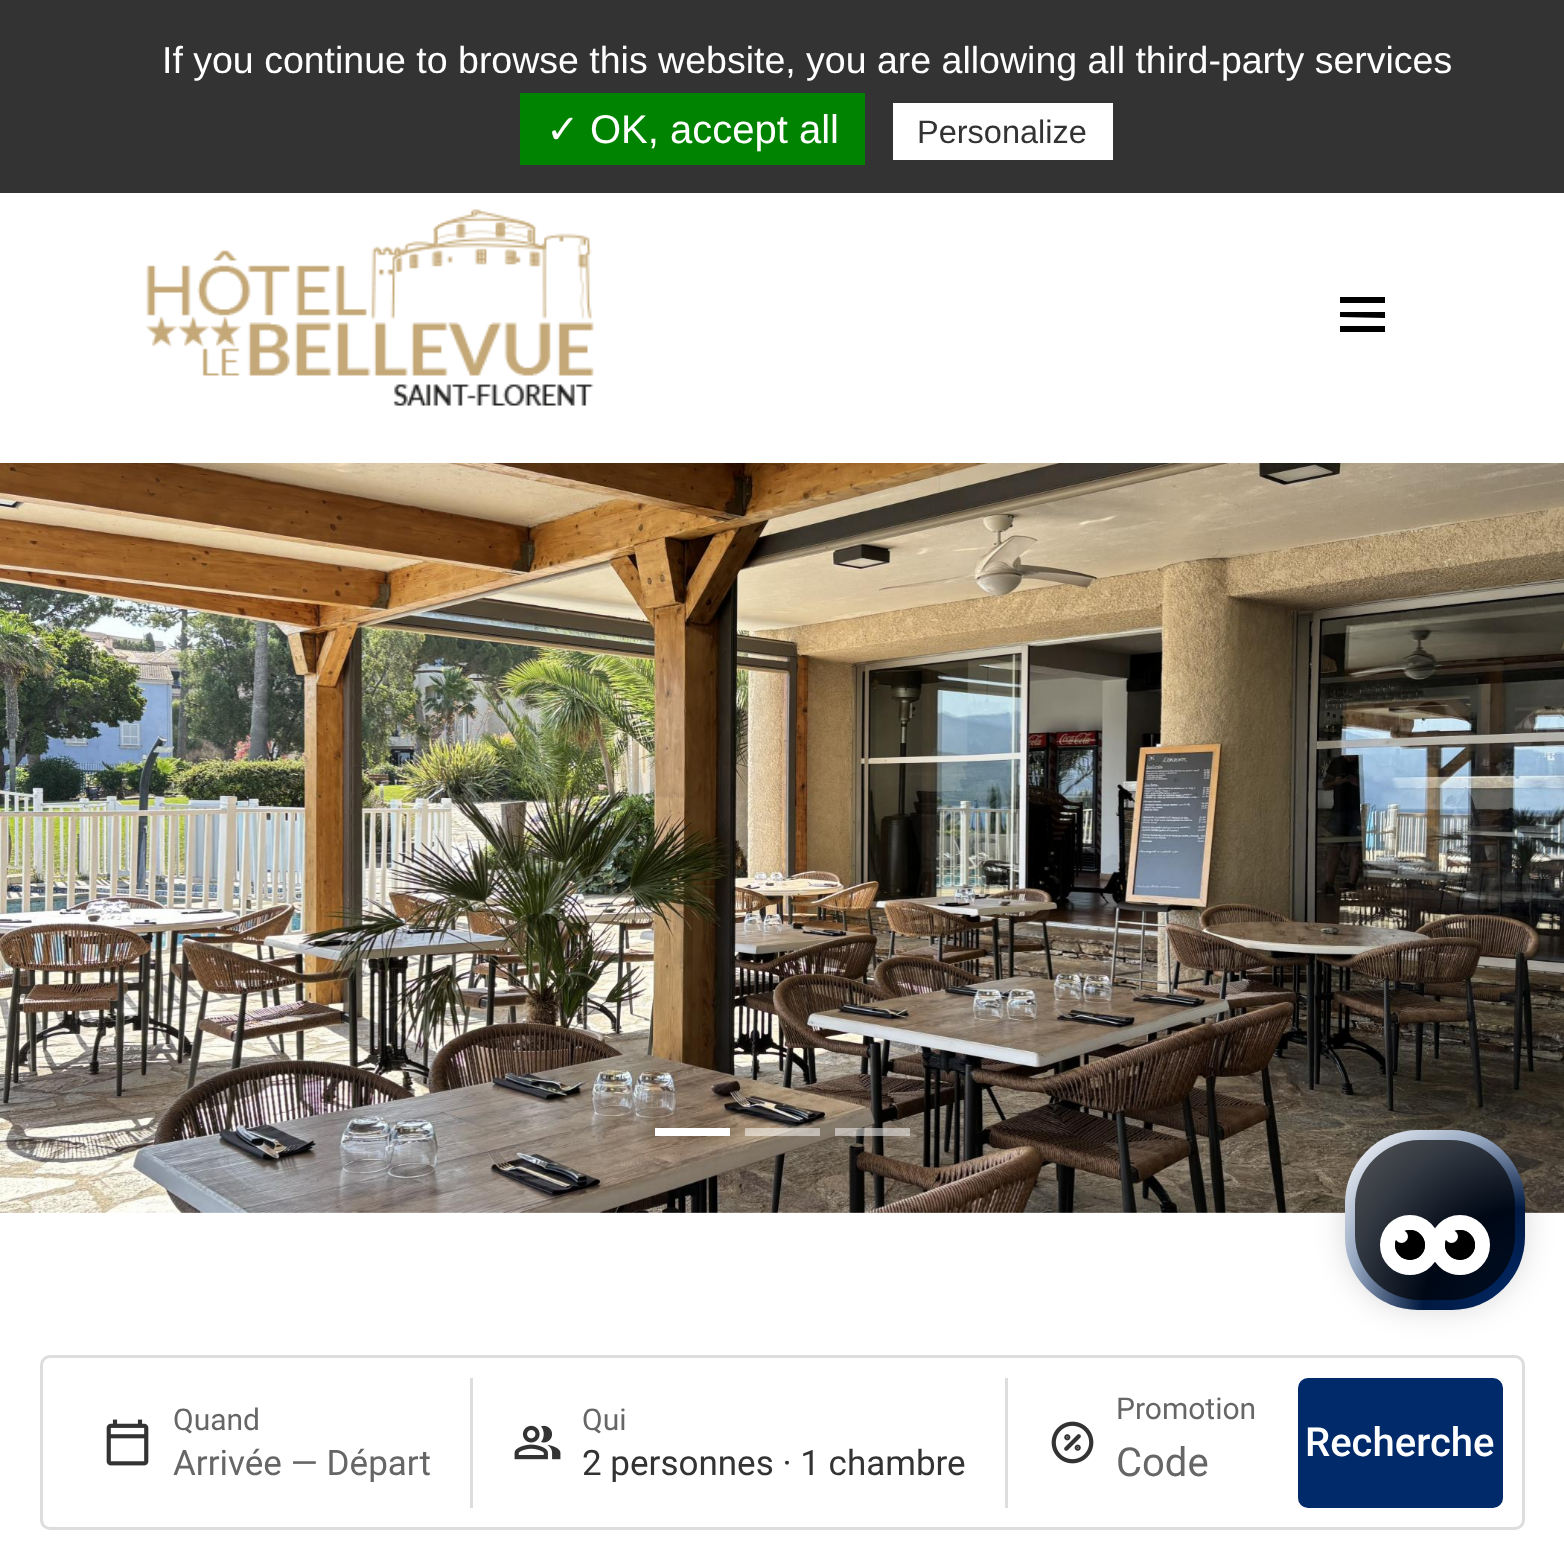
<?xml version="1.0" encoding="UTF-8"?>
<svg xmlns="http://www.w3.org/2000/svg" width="1564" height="1560">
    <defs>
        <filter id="blur1" x="-50%" y="-200%" width="200%" height="500%"><feGaussianBlur stdDeviation="15"/></filter>
        <radialGradient id="g1" gradientUnits="userSpaceOnUse" cx="1525" cy="1310" r="255"><stop offset="0" stop-color="#012A6A"/><stop offset="0.4" stop-color="#011940"/><stop offset="0.7" stop-color="#99AAC3"/><stop offset="0.9" stop-color="#E6EAF0"/></radialGradient>
    </defs>
    <rect width="100%" height="100%" fill="#FFFFFF"/>
    <rect x="0" y="0" width="1564" height="193" fill="#333333"/>
    <text x="162" y="73" font-family="Liberation Sans" font-size="37.5" fill="#FFFFFF">If you continue to browse this website, you are allowing all third-party services</text>
    <rect x="520" y="93" width="345" height="72" fill="#008300"/>
    <text x="546" y="143" font-family="DejaVu Sans" font-size="40" fill="#FFFFFF">✓</text>
    <text x="590" y="143" font-family="Liberation Sans" font-size="40" fill="#FFFFFF">OK, accept all</text>
    <rect x="893" y="103" width="220" height="57" fill="#FFFFFF"/>
    <text x="917" y="143" font-family="Liberation Sans" font-size="32.5" fill="#333333">Personalize</text>
    <image x="0" y="463" width="1564" height="750" href="img_02.png"/>
    <rect x="41.5" y="1356.5" width="1482" height="172" rx="8.5" fill="none" stroke="#DDDDDD" stroke-width="3"/>
    <rect x="1345" y="1130" width="180" height="180" rx="73" fill="#000000" fill-opacity="0.15" filter="url(#blur1)"/>
    <rect x="1345" y="1130" width="180" height="180" rx="73" fill="url(#g1)"/>
    <rect x="1355" y="1140" width="160" height="160" rx="65" fill="#000000" fill-opacity="0.66"/>
    <circle cx="1410" cy="1245" r="22.5" fill="none" stroke="#FFFFFF" stroke-width="15"/>
    <circle cx="1410" cy="1245" r="15" fill="#000000"/>
    <circle cx="1401.5" cy="1236.5" r="6.5" fill="#FFFFFF"/>
    <circle cx="1460" cy="1245" r="22.5" fill="none" stroke="#FFFFFF" stroke-width="15"/>
    <circle cx="1460" cy="1245" r="15" fill="#000000"/>
    <circle cx="1451.5" cy="1236.5" r="6.5" fill="#FFFFFF"/>
    <image x="146" y="209" width="448" height="197" href="img_01.png"/>
    <path d="M 1385 297 V 303 H 1340 V 297 Z M 1340 317 L 1385 318 V 312 H 1340 Z M 1340 332 H 1385 V 326 H 1340 Z" fill="#000000"/>
    <rect x="655" y="1128" width="75" height="8" fill="#FFFFFF"/>
    <rect x="745" y="1128" width="75" height="8" fill="#FFFFFF" fill-opacity="0.5"/>
    <rect x="835" y="1128" width="75" height="8" fill="#FFFFFF" fill-opacity="0.5"/>
    <image x="106" y="1419" width="43" height="47" href="img_03.png"/>
    <text x="173" y="1430" font-family="Roboto" font-size="30" fill="#666666">Quand</text>
    <text x="173" y="1475" font-family="Roboto" font-size="35" fill="#666666">Arrivée — Départ</text>
    <rect x="470" y="1378" width="3" height="130" fill="#DDDDDD"/>
    <image x="514" y="1425" width="47" height="35" href="img_04.png"/>
    <text x="582" y="1430" font-family="Roboto" font-size="30" fill="#666666">Qui</text>
    <text x="582" y="1475" font-family="Roboto" font-size="35" fill="#333333">2 personnes · 1 chambre</text>
    <rect x="1005" y="1378" width="3" height="130" fill="#DDDDDD"/>
    <image x="1051" y="1421" width="43" height="43" href="img_05.png"/>
    <text x="1116" y="1419" font-family="Roboto" font-size="30" fill="#666666">Promotion</text>
    <text x="1116" y="1476" font-family="Roboto" font-size="40" fill="#666666">Code</text>
    <rect x="1298" y="1378" width="205" height="130" rx="10" fill="#012A6A"/>
    <text x="1305" y="1456" font-family="Roboto" font-size="40" font-weight="500" fill="#FFFFFF">Recherche</text>
</svg>
